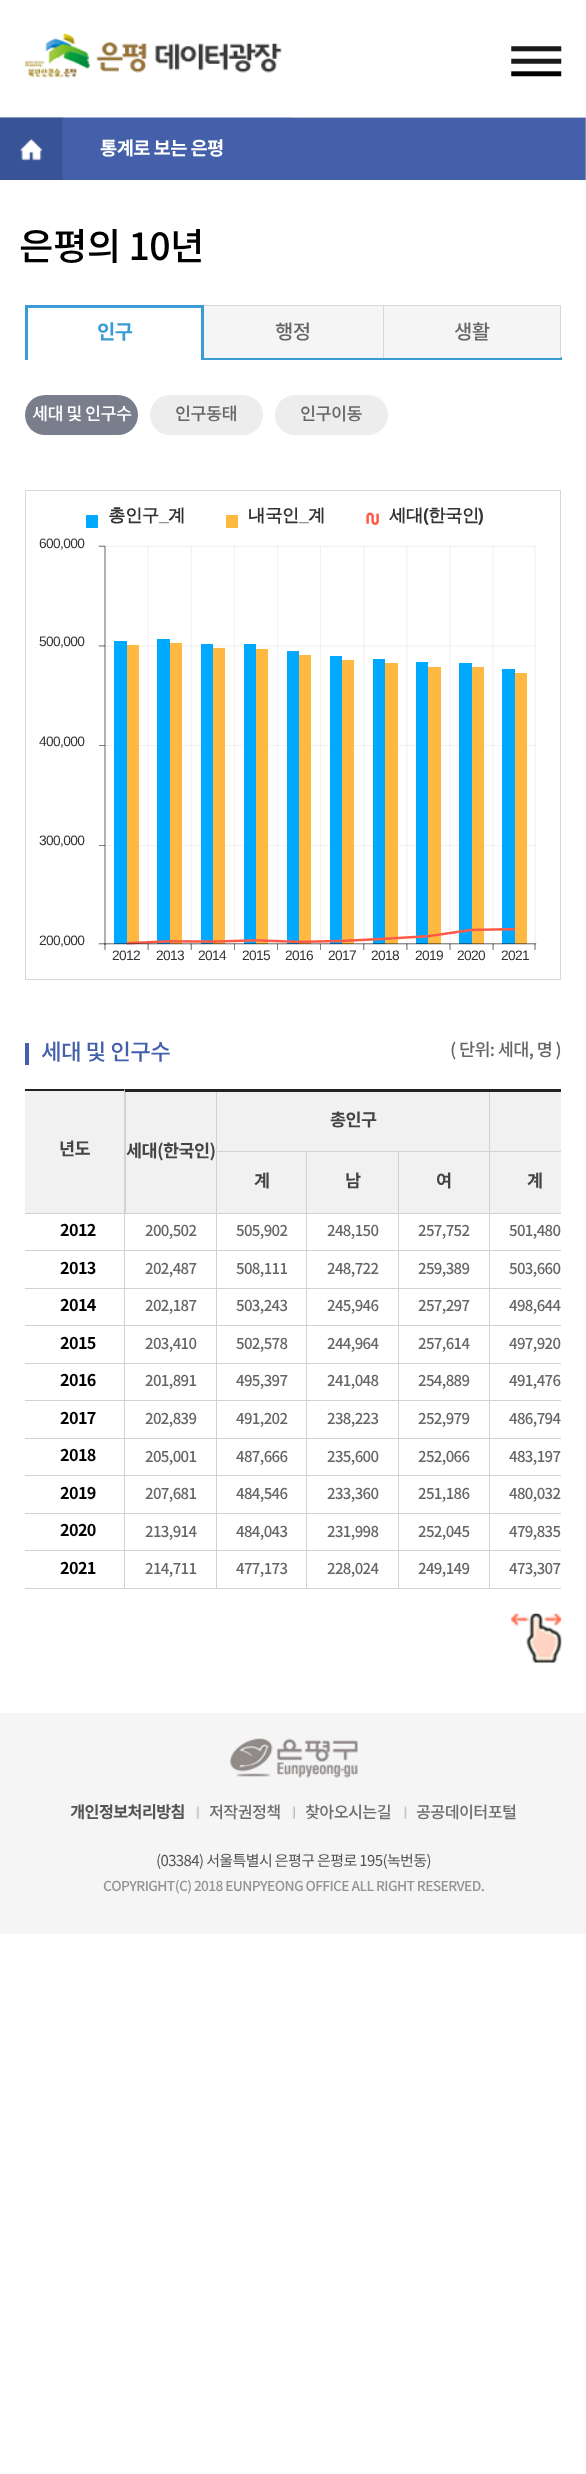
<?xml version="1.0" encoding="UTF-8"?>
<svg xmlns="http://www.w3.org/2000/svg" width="586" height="2474">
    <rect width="100%" height="100%" fill="#FFFFFF"/>
    <image x="25" y="33" width="257" height="45" href="img_01.png"/>
    <image x="511" y="46" width="51" height="31" href="img_02.png"/>
    <image x="0" y="117" width="586" height="63" href="img_03.png"/>
    <image x="0" y="117" width="63" height="63" href="img_04.png"/>
    <rect x="293" y="118" width="292" height="62" fill="#4460AA"/>
    <rect x="585" y="118" width="1" height="62" fill="#878A98"/>
    <text x="100" y="155" font-family="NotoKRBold" font-size="18.75" font-weight="700" letter-spacing="-0.62" fill="#FFFFFF">통계로 보는 은평</text>
    <text x="19" y="260" font-family="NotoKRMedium" font-size="37.5" font-weight="500" letter-spacing="-0.62" fill="#000000">은평의 10년</text>
    <rect x="204" y="357" width="358" height="3" fill="#3B9BD6"/>
    <rect x="25" y="305" width="179" height="3" fill="#3B9BD6"/>
    <rect x="201" y="308" width="3" height="52" fill="#3B9BD6"/>
    <rect x="25" y="308" width="3" height="52" fill="#3B9BD6"/>
    <text x="97" y="339" font-family="NotoKRBold" font-size="20" font-weight="700" letter-spacing="-0.62" fill="#3B9BD6">인구</text>
    <rect x="25" y="395" width="113" height="40" rx="20" fill="#797D8C"/>
    <text x="32" y="420" font-family="NotoKRMedium" font-size="17.5" font-weight="500" letter-spacing="-0.62" fill="#FFFFFF">세대 및 인구수</text>
    <rect x="150" y="395" width="113" height="40" rx="20" fill="#EDEDED"/>
    <text x="175" y="420" font-family="NotoKRMedium" font-size="17.5" font-weight="500" letter-spacing="-0.62" fill="#666666">인구동태</text>
    <rect x="275" y="395" width="113" height="40" rx="20" fill="#EDEDED"/>
    <text x="300" y="420" font-family="NotoKRMedium" font-size="17.5" font-weight="500" letter-spacing="-0.62" fill="#666666">인구이동</text>
    <rect x="204" y="306" width="179" height="52" fill="#F5F5F5"/>
    <rect x="204" y="305" width="357" height="1" fill="#D8D8D8"/>
    <text x="275" y="339" font-family="NotoKRMedium" font-size="20" font-weight="500" letter-spacing="-0.62" fill="#666666">행정</text>
    <rect x="384" y="306" width="176" height="52" fill="#F5F5F5"/>
    <rect x="560" y="305" width="1" height="53" fill="#D8D8D8"/>
    <rect x="383" y="306" width="1" height="52" fill="#D8D8D8"/>
    <text x="454" y="339" font-family="NotoKRMedium" font-size="20" font-weight="500" letter-spacing="-0.62" fill="#666666">생활</text>
    <rect x="25.5" y="490.5" width="535" height="489" fill="none" stroke="#D9D8D8"/>
    <image x="86" y="512" width="451" height="438" href="img_05.png"/>
    <text x="108" y="521" font-family="WenQuanYi Zen Hei" font-size="17.5" font-weight="700" letter-spacing="-0.62" fill="#333333">총인구</text>
    <text x="159" y="521" font-family="Liberation Sans" font-size="17.5" font-weight="700" letter-spacing="-0.62" fill="#333333">_</text>
    <text x="168" y="521" font-family="WenQuanYi Zen Hei" font-size="17.5" font-weight="700" letter-spacing="-0.62" fill="#333333">계</text>
    <text x="248" y="521" font-family="WenQuanYi Zen Hei" font-size="17.5" font-weight="700" letter-spacing="-0.62" fill="#333333">내국인</text>
    <text x="299" y="521" font-family="Liberation Sans" font-size="17.5" font-weight="700" letter-spacing="-0.62" fill="#333333">_</text>
    <text x="308" y="521" font-family="WenQuanYi Zen Hei" font-size="17.5" font-weight="700" letter-spacing="-0.62" fill="#333333">계</text>
    <text x="389" y="521" font-family="WenQuanYi Zen Hei" font-size="17.5" font-weight="700" letter-spacing="-0.62" fill="#333333">세대</text>
    <text x="423" y="521" font-family="Liberation Sans" font-size="17.5" font-weight="700" letter-spacing="-0.62" fill="#333333">(</text>
    <text x="428" y="521" font-family="WenQuanYi Zen Hei" font-size="17.5" font-weight="700" letter-spacing="-0.62" fill="#333333">한국인</text>
    <text x="478" y="521" font-family="Liberation Sans" font-size="17.5" font-weight="700" letter-spacing="-0.62" fill="#333333">)</text>
    <text x="39" y="548" font-family="Liberation Sans" font-size="13.75" letter-spacing="-0.62" fill="#333333">600,000</text>
    <text x="39" y="646" font-family="Liberation Sans" font-size="13.75" letter-spacing="-0.62" fill="#333333">500,000</text>
    <text x="39" y="746" font-family="Liberation Sans" font-size="13.75" letter-spacing="-0.62" fill="#333333">400,000</text>
    <text x="39" y="845" font-family="Liberation Sans" font-size="13.75" letter-spacing="-0.62" fill="#333333">300,000</text>
    <text x="39" y="945" font-family="Liberation Sans" font-size="13.75" letter-spacing="-0.62" fill="#333333">200,000</text>
    <text x="112" y="960" font-family="Liberation Sans" font-size="13.75" letter-spacing="-0.62" fill="#333333">2012</text>
    <text x="156" y="960" font-family="Liberation Sans" font-size="13.75" letter-spacing="-0.62" fill="#333333">2013</text>
    <text x="198" y="960" font-family="Liberation Sans" font-size="13.75" letter-spacing="-0.62" fill="#333333">2014</text>
    <text x="242" y="960" font-family="Liberation Sans" font-size="13.75" letter-spacing="-0.62" fill="#333333">2015</text>
    <text x="285" y="960" font-family="Liberation Sans" font-size="13.75" letter-spacing="-0.62" fill="#333333">2016</text>
    <text x="328" y="960" font-family="Liberation Sans" font-size="13.75" letter-spacing="-0.62" fill="#333333">2017</text>
    <text x="371" y="960" font-family="Liberation Sans" font-size="13.75" letter-spacing="-0.62" fill="#333333">2018</text>
    <text x="415" y="960" font-family="Liberation Sans" font-size="13.75" letter-spacing="-0.62" fill="#333333">2019</text>
    <text x="457" y="960" font-family="Liberation Sans" font-size="13.75" letter-spacing="-0.62" fill="#333333">2020</text>
    <text x="501" y="960" font-family="Liberation Sans" font-size="13.75" letter-spacing="-0.62" fill="#333333">2021</text>
    <rect x="25" y="1043" width="4" height="22" fill="#4460AA"/>
    <text x="41" y="1060" font-family="NotoKRMedium" font-size="22.5" font-weight="500" letter-spacing="-0.62" fill="#4460AA">세대 및 인구수</text>
    <text x="450" y="1056" font-family="NotoKRMedium" font-size="17.5" font-weight="500" letter-spacing="-0.62" fill="#666666">( 단위: 세대, 명 )</text>
    <rect x="25" y="1089" width="100" height="124" fill="#F1F1F1"/>
    <path d="M 25 1089 H 125 L 124 1091 H 25 Z" fill="#242322"/>
    <path d="M 125 1089 V 1214 L 124 1212 V 1091 Z" fill="#D1D1D1"/>
    <rect x="25" y="1213" width="100" height="1" fill="#D1D1D1"/>
    <text x="59" y="1155" font-family="NotoKRBold" font-size="17.5" font-weight="700" letter-spacing="-0.62" fill="#444444">년도</text>
    <rect x="124" y="1214" width="1" height="375" fill="#D1D1D1"/>
    <rect x="25" y="1250" width="100" height="1" fill="#D1D1D1"/>
    <text x="60" y="1236" font-family="NotoKRBold" font-size="16.25" font-weight="700" letter-spacing="-0.62" fill="#000000">2012</text>
    <rect x="25" y="1288" width="100" height="1" fill="#D1D1D1"/>
    <text x="60" y="1274" font-family="NotoKRBold" font-size="16.25" font-weight="700" letter-spacing="-0.62" fill="#000000">2013</text>
    <rect x="25" y="1325" width="100" height="1" fill="#D1D1D1"/>
    <text x="60" y="1311" font-family="NotoKRBold" font-size="16.25" font-weight="700" letter-spacing="-0.62" fill="#000000">2014</text>
    <rect x="25" y="1363" width="100" height="1" fill="#D1D1D1"/>
    <text x="60" y="1349" font-family="NotoKRBold" font-size="16.25" font-weight="700" letter-spacing="-0.62" fill="#000000">2015</text>
    <rect x="25" y="1400" width="100" height="1" fill="#D1D1D1"/>
    <text x="60" y="1386" font-family="NotoKRBold" font-size="16.25" font-weight="700" letter-spacing="-0.62" fill="#000000">2016</text>
    <rect x="25" y="1438" width="100" height="1" fill="#D1D1D1"/>
    <text x="60" y="1424" font-family="NotoKRBold" font-size="16.25" font-weight="700" letter-spacing="-0.62" fill="#000000">2017</text>
    <rect x="25" y="1475" width="100" height="1" fill="#D1D1D1"/>
    <text x="60" y="1461" font-family="NotoKRBold" font-size="16.25" font-weight="700" letter-spacing="-0.62" fill="#000000">2018</text>
    <rect x="25" y="1513" width="100" height="1" fill="#D1D1D1"/>
    <text x="60" y="1499" font-family="NotoKRBold" font-size="16.25" font-weight="700" letter-spacing="-0.62" fill="#000000">2019</text>
    <rect x="25" y="1550" width="100" height="1" fill="#D1D1D1"/>
    <text x="60" y="1536" font-family="NotoKRBold" font-size="16.25" font-weight="700" letter-spacing="-0.62" fill="#000000">2020</text>
    <rect x="25" y="1588" width="100" height="1" fill="#D1D1D1"/>
    <text x="60" y="1574" font-family="NotoKRBold" font-size="16.25" font-weight="700" letter-spacing="-0.62" fill="#000000">2021</text>
    <rect x="490" y="1092" width="71" height="59" fill="#F1F1F1"/>
    <rect x="489" y="1151" width="72" height="1" fill="#D1D1D1"/>
    <rect x="489" y="1213" width="72" height="1" fill="#D1D1D1"/>
    <rect x="489" y="1250" width="72" height="1" fill="#D1D1D1"/>
    <rect x="489" y="1288" width="72" height="1" fill="#D1D1D1"/>
    <rect x="489" y="1325" width="72" height="1" fill="#D1D1D1"/>
    <rect x="489" y="1363" width="72" height="1" fill="#D1D1D1"/>
    <rect x="489" y="1400" width="72" height="1" fill="#D1D1D1"/>
    <rect x="489" y="1438" width="72" height="1" fill="#D1D1D1"/>
    <rect x="489" y="1475" width="72" height="1" fill="#D1D1D1"/>
    <rect x="489" y="1513" width="72" height="1" fill="#D1D1D1"/>
    <rect x="489" y="1550" width="72" height="1" fill="#D1D1D1"/>
    <rect x="489" y="1588" width="72" height="1" fill="#D1D1D1"/>
    <rect x="489" y="1550" width="1" height="39" fill="#D1D1D1"/>
    <rect x="398" y="1550" width="92" height="1" fill="#D1D1D1"/>
    <rect x="489" y="1513" width="1" height="38" fill="#D1D1D1"/>
    <rect x="398" y="1513" width="92" height="1" fill="#D1D1D1"/>
    <rect x="489" y="1475" width="1" height="39" fill="#D1D1D1"/>
    <rect x="398" y="1475" width="92" height="1" fill="#D1D1D1"/>
    <rect x="489" y="1438" width="1" height="38" fill="#D1D1D1"/>
    <rect x="398" y="1438" width="92" height="1" fill="#D1D1D1"/>
    <rect x="489" y="1400" width="1" height="39" fill="#D1D1D1"/>
    <rect x="398" y="1400" width="92" height="1" fill="#D1D1D1"/>
    <rect x="489" y="1363" width="1" height="38" fill="#D1D1D1"/>
    <rect x="398" y="1363" width="92" height="1" fill="#D1D1D1"/>
    <rect x="489" y="1325" width="1" height="39" fill="#D1D1D1"/>
    <rect x="398" y="1325" width="92" height="1" fill="#D1D1D1"/>
    <rect x="489" y="1288" width="1" height="38" fill="#D1D1D1"/>
    <rect x="398" y="1288" width="92" height="1" fill="#D1D1D1"/>
    <rect x="489" y="1250" width="1" height="39" fill="#D1D1D1"/>
    <rect x="398" y="1250" width="92" height="1" fill="#D1D1D1"/>
    <rect x="489" y="1213" width="1" height="38" fill="#D1D1D1"/>
    <rect x="398" y="1213" width="92" height="1" fill="#D1D1D1"/>
    <rect x="489" y="1151" width="1" height="63" fill="#D1D1D1"/>
    <rect x="398" y="1151" width="92" height="1" fill="#D1D1D1"/>
    <rect x="489" y="1090" width="1" height="63" fill="#D1D1D1"/>
    <rect x="398" y="1588" width="92" height="1" fill="#D1D1D1"/>
    <rect x="398" y="1550" width="1" height="39" fill="#D1D1D1"/>
    <rect x="306" y="1550" width="93" height="1" fill="#D1D1D1"/>
    <rect x="398" y="1513" width="1" height="38" fill="#D1D1D1"/>
    <rect x="306" y="1513" width="93" height="1" fill="#D1D1D1"/>
    <rect x="398" y="1475" width="1" height="39" fill="#D1D1D1"/>
    <rect x="306" y="1475" width="93" height="1" fill="#D1D1D1"/>
    <rect x="398" y="1438" width="1" height="38" fill="#D1D1D1"/>
    <rect x="306" y="1438" width="93" height="1" fill="#D1D1D1"/>
    <rect x="398" y="1400" width="1" height="39" fill="#D1D1D1"/>
    <rect x="306" y="1400" width="93" height="1" fill="#D1D1D1"/>
    <rect x="398" y="1363" width="1" height="38" fill="#D1D1D1"/>
    <rect x="306" y="1363" width="93" height="1" fill="#D1D1D1"/>
    <rect x="398" y="1325" width="1" height="39" fill="#D1D1D1"/>
    <rect x="306" y="1325" width="93" height="1" fill="#D1D1D1"/>
    <rect x="398" y="1288" width="1" height="38" fill="#D1D1D1"/>
    <rect x="306" y="1288" width="93" height="1" fill="#D1D1D1"/>
    <rect x="398" y="1250" width="1" height="39" fill="#D1D1D1"/>
    <rect x="306" y="1250" width="93" height="1" fill="#D1D1D1"/>
    <rect x="398" y="1213" width="1" height="38" fill="#D1D1D1"/>
    <rect x="306" y="1213" width="93" height="1" fill="#D1D1D1"/>
    <rect x="306" y="1588" width="93" height="1" fill="#D1D1D1"/>
    <rect x="306" y="1550" width="1" height="39" fill="#D1D1D1"/>
    <rect x="216" y="1550" width="92" height="1" fill="#D1D1D1"/>
    <rect x="306" y="1513" width="1" height="38" fill="#D1D1D1"/>
    <rect x="216" y="1513" width="92" height="1" fill="#D1D1D1"/>
    <rect x="306" y="1475" width="1" height="39" fill="#D1D1D1"/>
    <rect x="216" y="1475" width="92" height="1" fill="#D1D1D1"/>
    <rect x="306" y="1438" width="1" height="38" fill="#D1D1D1"/>
    <rect x="216" y="1438" width="92" height="1" fill="#D1D1D1"/>
    <rect x="306" y="1400" width="1" height="39" fill="#D1D1D1"/>
    <rect x="216" y="1400" width="92" height="1" fill="#D1D1D1"/>
    <rect x="306" y="1363" width="1" height="38" fill="#D1D1D1"/>
    <rect x="216" y="1363" width="92" height="1" fill="#D1D1D1"/>
    <rect x="306" y="1325" width="1" height="39" fill="#D1D1D1"/>
    <rect x="216" y="1325" width="92" height="1" fill="#D1D1D1"/>
    <rect x="306" y="1288" width="1" height="38" fill="#D1D1D1"/>
    <rect x="216" y="1288" width="92" height="1" fill="#D1D1D1"/>
    <rect x="306" y="1250" width="1" height="39" fill="#D1D1D1"/>
    <rect x="216" y="1250" width="92" height="1" fill="#D1D1D1"/>
    <rect x="306" y="1213" width="1" height="38" fill="#D1D1D1"/>
    <rect x="216" y="1213" width="92" height="1" fill="#D1D1D1"/>
    <rect x="216" y="1588" width="92" height="1" fill="#D1D1D1"/>
    <rect x="216" y="1550" width="1" height="39" fill="#D1D1D1"/>
    <rect x="125" y="1550" width="93" height="1" fill="#D1D1D1"/>
    <rect x="216" y="1513" width="1" height="38" fill="#D1D1D1"/>
    <rect x="125" y="1513" width="93" height="1" fill="#D1D1D1"/>
    <rect x="216" y="1475" width="1" height="39" fill="#D1D1D1"/>
    <rect x="125" y="1475" width="93" height="1" fill="#D1D1D1"/>
    <rect x="216" y="1438" width="1" height="38" fill="#D1D1D1"/>
    <rect x="125" y="1438" width="93" height="1" fill="#D1D1D1"/>
    <rect x="216" y="1400" width="1" height="39" fill="#D1D1D1"/>
    <rect x="125" y="1400" width="93" height="1" fill="#D1D1D1"/>
    <rect x="216" y="1363" width="1" height="38" fill="#D1D1D1"/>
    <rect x="125" y="1363" width="93" height="1" fill="#D1D1D1"/>
    <rect x="216" y="1325" width="1" height="39" fill="#D1D1D1"/>
    <rect x="125" y="1325" width="93" height="1" fill="#D1D1D1"/>
    <rect x="216" y="1288" width="1" height="38" fill="#D1D1D1"/>
    <rect x="125" y="1288" width="93" height="1" fill="#D1D1D1"/>
    <rect x="216" y="1250" width="1" height="39" fill="#D1D1D1"/>
    <rect x="125" y="1250" width="93" height="1" fill="#D1D1D1"/>
    <rect x="216" y="1213" width="1" height="38" fill="#D1D1D1"/>
    <rect x="125" y="1213" width="93" height="1" fill="#D1D1D1"/>
    <rect x="125" y="1090" width="1" height="124" fill="#D1D1D1"/>
    <rect x="398" y="1151" width="1" height="63" fill="#D1D1D1"/>
    <rect x="306" y="1151" width="93" height="1" fill="#D1D1D1"/>
    <rect x="217" y="1152" width="181" height="61" fill="#F1F1F1"/>
    <rect x="306" y="1151" width="1" height="63" fill="#D1D1D1"/>
    <rect x="216" y="1151" width="92" height="1" fill="#D1D1D1"/>
    <rect x="216" y="1090" width="1" height="124" fill="#D1D1D1"/>
    <rect x="125" y="1089" width="436" height="3" fill="#242322"/>
    <rect x="217" y="1092" width="272" height="59" fill="#F1F1F1"/>
    <text x="330" y="1126" font-family="NotoKRBold" font-size="17.5" font-weight="700" letter-spacing="-0.62" fill="#444444">총인구</text>
    <rect x="126" y="1092" width="90" height="121" fill="#F1F1F1"/>
    <text x="126" y="1157" font-family="NotoKRBold" font-size="17.5" font-weight="700" letter-spacing="-0.62" fill="#444444">세대(한국인)</text>
    <text x="254" y="1187" font-family="NotoKRBold" font-size="17.5" font-weight="700" letter-spacing="-0.62" fill="#444444">계</text>
    <text x="345" y="1187" font-family="NotoKRBold" font-size="17.5" font-weight="700" letter-spacing="-0.62" fill="#444444">남</text>
    <rect x="399" y="1152" width="90" height="61" fill="#F1F1F1"/>
    <text x="436" y="1187" font-family="NotoKRBold" font-size="17.5" font-weight="700" letter-spacing="-0.62" fill="#444444">여</text>
    <rect x="490" y="1152" width="71" height="61" fill="#F1F1F1"/>
    <text x="527" y="1187" font-family="NotoKRBold" font-size="17.5" font-weight="700" letter-spacing="-0.62" fill="#444444">계</text>
    <text x="145" y="1236" font-family="NotoKRMedium" font-size="15" font-weight="500" letter-spacing="-0.62" fill="#666666">200,502</text>
    <text x="236" y="1236" font-family="NotoKRMedium" font-size="15" font-weight="500" letter-spacing="-0.62" fill="#666666">505,902</text>
    <text x="327" y="1236" font-family="NotoKRMedium" font-size="15" font-weight="500" letter-spacing="-0.62" fill="#666666">248,150</text>
    <text x="418" y="1236" font-family="NotoKRMedium" font-size="15" font-weight="500" letter-spacing="-0.62" fill="#666666">257,752</text>
    <text x="509" y="1236" font-family="NotoKRMedium" font-size="15" font-weight="500" letter-spacing="-0.62" fill="#666666">501,480</text>
    <text x="145" y="1274" font-family="NotoKRMedium" font-size="15" font-weight="500" letter-spacing="-0.62" fill="#666666">202,487</text>
    <text x="236" y="1274" font-family="NotoKRMedium" font-size="15" font-weight="500" letter-spacing="-0.62" fill="#666666">508,111</text>
    <text x="327" y="1274" font-family="NotoKRMedium" font-size="15" font-weight="500" letter-spacing="-0.62" fill="#666666">248,722</text>
    <text x="418" y="1274" font-family="NotoKRMedium" font-size="15" font-weight="500" letter-spacing="-0.62" fill="#666666">259,389</text>
    <text x="509" y="1274" font-family="NotoKRMedium" font-size="15" font-weight="500" letter-spacing="-0.62" fill="#666666">503,660</text>
    <text x="145" y="1311" font-family="NotoKRMedium" font-size="15" font-weight="500" letter-spacing="-0.62" fill="#666666">202,187</text>
    <text x="236" y="1311" font-family="NotoKRMedium" font-size="15" font-weight="500" letter-spacing="-0.62" fill="#666666">503,243</text>
    <text x="327" y="1311" font-family="NotoKRMedium" font-size="15" font-weight="500" letter-spacing="-0.62" fill="#666666">245,946</text>
    <text x="418" y="1311" font-family="NotoKRMedium" font-size="15" font-weight="500" letter-spacing="-0.62" fill="#666666">257,297</text>
    <text x="509" y="1311" font-family="NotoKRMedium" font-size="15" font-weight="500" letter-spacing="-0.62" fill="#666666">498,644</text>
    <text x="145" y="1349" font-family="NotoKRMedium" font-size="15" font-weight="500" letter-spacing="-0.62" fill="#666666">203,410</text>
    <text x="236" y="1349" font-family="NotoKRMedium" font-size="15" font-weight="500" letter-spacing="-0.62" fill="#666666">502,578</text>
    <text x="327" y="1349" font-family="NotoKRMedium" font-size="15" font-weight="500" letter-spacing="-0.62" fill="#666666">244,964</text>
    <text x="418" y="1349" font-family="NotoKRMedium" font-size="15" font-weight="500" letter-spacing="-0.62" fill="#666666">257,614</text>
    <text x="509" y="1349" font-family="NotoKRMedium" font-size="15" font-weight="500" letter-spacing="-0.62" fill="#666666">497,920</text>
    <text x="145" y="1386" font-family="NotoKRMedium" font-size="15" font-weight="500" letter-spacing="-0.62" fill="#666666">201,891</text>
    <text x="236" y="1386" font-family="NotoKRMedium" font-size="15" font-weight="500" letter-spacing="-0.62" fill="#666666">495,397</text>
    <text x="327" y="1386" font-family="NotoKRMedium" font-size="15" font-weight="500" letter-spacing="-0.62" fill="#666666">241,048</text>
    <text x="418" y="1386" font-family="NotoKRMedium" font-size="15" font-weight="500" letter-spacing="-0.62" fill="#666666">254,889</text>
    <text x="509" y="1386" font-family="NotoKRMedium" font-size="15" font-weight="500" letter-spacing="-0.62" fill="#666666">491,476</text>
    <text x="145" y="1424" font-family="NotoKRMedium" font-size="15" font-weight="500" letter-spacing="-0.62" fill="#666666">202,839</text>
    <text x="236" y="1424" font-family="NotoKRMedium" font-size="15" font-weight="500" letter-spacing="-0.62" fill="#666666">491,202</text>
    <text x="327" y="1424" font-family="NotoKRMedium" font-size="15" font-weight="500" letter-spacing="-0.62" fill="#666666">238,223</text>
    <text x="418" y="1424" font-family="NotoKRMedium" font-size="15" font-weight="500" letter-spacing="-0.62" fill="#666666">252,979</text>
    <text x="509" y="1424" font-family="NotoKRMedium" font-size="15" font-weight="500" letter-spacing="-0.62" fill="#666666">486,794</text>
    <text x="145" y="1462" font-family="NotoKRMedium" font-size="15" font-weight="500" letter-spacing="-0.62" fill="#666666">205,001</text>
    <text x="236" y="1462" font-family="NotoKRMedium" font-size="15" font-weight="500" letter-spacing="-0.62" fill="#666666">487,666</text>
    <text x="327" y="1462" font-family="NotoKRMedium" font-size="15" font-weight="500" letter-spacing="-0.62" fill="#666666">235,600</text>
    <text x="418" y="1462" font-family="NotoKRMedium" font-size="15" font-weight="500" letter-spacing="-0.62" fill="#666666">252,066</text>
    <text x="509" y="1462" font-family="NotoKRMedium" font-size="15" font-weight="500" letter-spacing="-0.62" fill="#666666">483,197</text>
    <text x="145" y="1499" font-family="NotoKRMedium" font-size="15" font-weight="500" letter-spacing="-0.62" fill="#666666">207,681</text>
    <text x="236" y="1499" font-family="NotoKRMedium" font-size="15" font-weight="500" letter-spacing="-0.62" fill="#666666">484,546</text>
    <text x="327" y="1499" font-family="NotoKRMedium" font-size="15" font-weight="500" letter-spacing="-0.62" fill="#666666">233,360</text>
    <text x="418" y="1499" font-family="NotoKRMedium" font-size="15" font-weight="500" letter-spacing="-0.62" fill="#666666">251,186</text>
    <text x="509" y="1499" font-family="NotoKRMedium" font-size="15" font-weight="500" letter-spacing="-0.62" fill="#666666">480,032</text>
    <text x="145" y="1537" font-family="NotoKRMedium" font-size="15" font-weight="500" letter-spacing="-0.62" fill="#666666">213,914</text>
    <text x="236" y="1537" font-family="NotoKRMedium" font-size="15" font-weight="500" letter-spacing="-0.62" fill="#666666">484,043</text>
    <text x="327" y="1537" font-family="NotoKRMedium" font-size="15" font-weight="500" letter-spacing="-0.62" fill="#666666">231,998</text>
    <text x="418" y="1537" font-family="NotoKRMedium" font-size="15" font-weight="500" letter-spacing="-0.62" fill="#666666">252,045</text>
    <text x="509" y="1537" font-family="NotoKRMedium" font-size="15" font-weight="500" letter-spacing="-0.62" fill="#666666">479,835</text>
    <rect x="125" y="1588" width="93" height="1" fill="#D1D1D1"/>
    <text x="145" y="1574" font-family="NotoKRMedium" font-size="15" font-weight="500" letter-spacing="-0.62" fill="#666666">214,711</text>
    <text x="236" y="1574" font-family="NotoKRMedium" font-size="15" font-weight="500" letter-spacing="-0.62" fill="#666666">477,173</text>
    <text x="327" y="1574" font-family="NotoKRMedium" font-size="15" font-weight="500" letter-spacing="-0.62" fill="#666666">228,024</text>
    <text x="418" y="1574" font-family="NotoKRMedium" font-size="15" font-weight="500" letter-spacing="-0.62" fill="#666666">249,149</text>
    <text x="509" y="1574" font-family="NotoKRMedium" font-size="15" font-weight="500" letter-spacing="-0.62" fill="#666666">473,307</text>
    <image x="511" y="1613" width="51" height="50" href="img_06.png"/>
    <rect x="0" y="1713" width="586" height="221" fill="#F5F5F5"/>
    <image x="229" y="1738" width="129" height="40" href="img_07.png"/>
    <text x="70" y="1818" font-family="NotoKRMedium" font-size="16.25" font-weight="700" letter-spacing="-0.62" fill="#545454">개인정보처리방침</text>
    <image x="196" y="1806" width="3" height="13" href="img_08.png"/>
    <text x="209" y="1818" font-family="NotoKRMedium" font-size="16.25" font-weight="500" letter-spacing="-0.62" fill="#6E6E6E">저작권정책</text>
    <image x="292" y="1806" width="3" height="13" href="img_09.png"/>
    <text x="305" y="1818" font-family="NotoKRMedium" font-size="16.25" font-weight="500" letter-spacing="-0.62" fill="#6E6E6E">찾아오시는길</text>
    <image x="404" y="1806" width="3" height="13" href="img_10.png"/>
    <text x="416" y="1818" font-family="NotoKRMedium" font-size="16.25" font-weight="500" letter-spacing="-0.62" fill="#6E6E6E">공공데이터포털</text>
    <text x="156" y="1866" font-family="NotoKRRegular" font-size="15" letter-spacing="-0.62" fill="#545454">(03384) 서울특별시 은평구 은평로 195(녹번동)</text>
    <text x="103" y="1891" font-family="NotoKRMedium" font-size="13.75" font-weight="500" letter-spacing="-0.62" fill="#949494">COPYRIGHT(C) 2018 EUNPYEONG OFFICE ALL RIGHT RESERVED.</text>
</svg>
